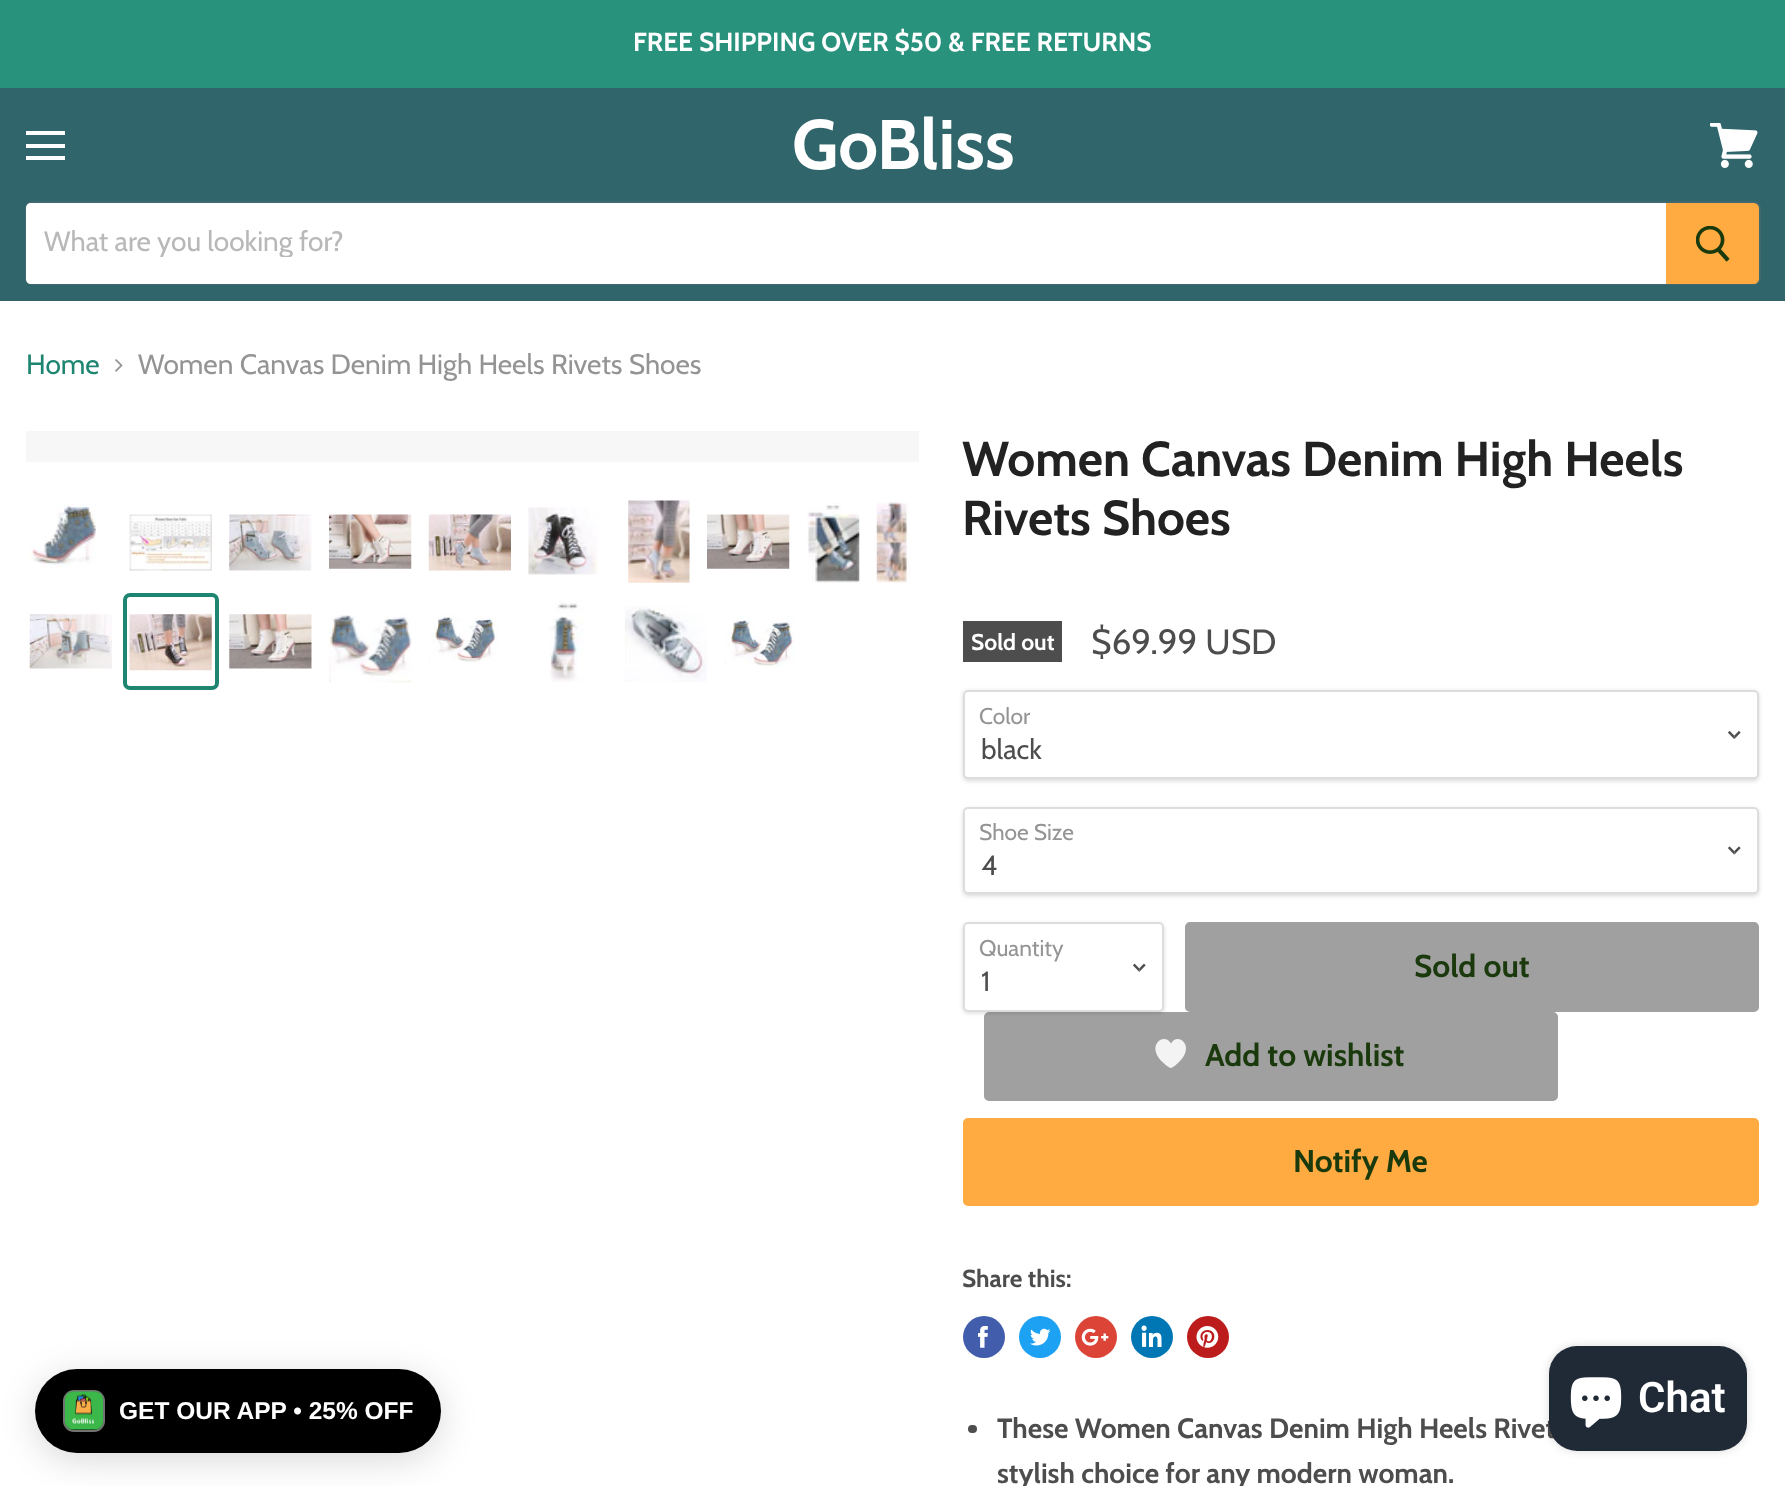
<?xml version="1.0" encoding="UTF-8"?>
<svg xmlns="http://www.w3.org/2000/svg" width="1785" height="1486">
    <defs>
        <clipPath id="clip1"><rect x="44" y="224" width="1605" height="33"/></clipPath>
        <filter id="blur1" x="-50%" y="-200%" width="200%" height="500%"><feGaussianBlur stdDeviation="2"/></filter>
        <filter id="blur2" x="-50%" y="-200%" width="200%" height="500%"><feGaussianBlur stdDeviation="17.5"/></filter>
        <filter id="blur3" x="-50%" y="-200%" width="200%" height="500%"><feGaussianBlur stdDeviation="4.5"/></filter>
    </defs>
    <rect width="100%" height="100%" fill="#FFFFFF"/>
    <rect x="0" y="0" width="1785" height="88" fill="#29927D"/>
    <text x="633" y="51" font-family="Cabin" font-size="26.25" font-weight="700" fill="#FFFFFF">FREE SHIPPING OVER $50 &amp; FREE RETURNS</text>
    <rect x="0" y="88" width="1785" height="213" fill="#30656B"/>
    <text x="792" y="169" font-family="Cabin" font-size="70" font-weight="700" fill="#FFFFFF">GoBliss</text>
    <rect x="26" y="202" width="1734" height="82" rx="6" fill="none" stroke="#7F7F7F" stroke-opacity="0.2" stroke-width="2"/>
    <path d="M 31 203 H 1666 V 284 H 31 C 28 284 26 282 26 279 V 208 C 26 205 28 203 31 203 Z" fill="#FFFFFF"/>
    <g clip-path="url(#clip1)">
        <text x="44" y="251" font-family="Cabin" font-size="28" fill="#B8B8B8">What are you looking for?</text>
    </g>
    <path d="M 1667 204 H 1754 C 1756 204 1758 206 1758 208 V 279 C 1758 281 1756 283 1754 283 H 1667 Z" fill="#FFAB41" stroke="#FFAB41" stroke-width="2"/>
    <image x="1696" y="226" width="34" height="36" href="img_01.png"/>
    <image x="1710" y="123" width="48" height="45" href="img_02.png"/>
    <rect x="26" y="131" width="39" height="4" fill="#FFFFFF"/>
    <rect x="26" y="144" width="39" height="4" fill="#FFFFFF"/>
    <rect x="26" y="156" width="39" height="4" fill="#FFFFFF"/>
    <text x="26" y="374" font-family="Cabin" font-size="28" fill="#1E8570">Home</text>
    <image x="115" y="359" width="8" height="13" href="img_03.png"/>
    <text x="138" y="374" font-family="Cabin" font-size="28" fill="#949494">Women Canvas Denim High Heels Rivets Shoes</text>
    <rect x="26" y="431" width="893" height="31" fill="#F7F7F7"/>
    <image x="30" y="504" width="66" height="65" href="img_04.png"/>
    <image x="129" y="514" width="83" height="57" href="img_05.png"/>
    <image x="229" y="514" width="83" height="57" href="img_06.png"/>
    <image x="329" y="514" width="83" height="55" href="img_07.png"/>
    <image x="428" y="514" width="83" height="57" href="img_08.png"/>
    <image x="528" y="507" width="70" height="68" href="img_09.png"/>
    <image x="628" y="500" width="62" height="83" href="img_10.png"/>
    <image x="707" y="514" width="83" height="55" href="img_11.png"/>
    <image x="807" y="503" width="53" height="80" href="img_12.png"/>
    <image x="876" y="502" width="34" height="81" href="img_13.png"/>
    <image x="29" y="614" width="83" height="55" href="img_14.png"/>
    <rect x="125" y="595" width="92" height="93" rx="5" fill="none" stroke="#1E8570" stroke-width="4"/>
    <image x="129" y="614" width="83" height="57" href="img_15.png"/>
    <image x="229" y="614" width="83" height="55" href="img_16.png"/>
    <image x="329" y="615" width="83" height="68" href="img_17.png"/>
    <image x="429" y="614" width="69" height="48" href="img_18.png"/>
    <image x="549" y="601" width="35" height="81" href="img_19.png"/>
    <image x="624" y="606" width="83" height="76" href="img_20.png"/>
    <image x="724" y="616" width="71" height="51" href="img_21.png"/>
    <text font-family="Cabin" font-size="49" font-weight="700" fill="#222222">
        <tspan x="962" y="476">Women Canvas Denim High Heels</tspan>
        <tspan x="962" y="535">Rivets Shoes</tspan>
    </text>
    <rect x="963" y="621" width="99" height="41" fill="#4D4D4D"/>
    <text x="971" y="650" font-family="Cabin" font-size="22.75" font-weight="700" fill="#FFFFFF">Sold out</text>
    <text x="1091" y="654" font-family="Cabin" font-size="35" fill="#4D4D4D">$69.99 USD</text>
    <rect x="963" y="691" width="796" height="90" rx="5" fill="#000000" fill-opacity="0.15" filter="url(#blur1)"/>
    <rect x="964" y="691" width="794" height="87" rx="4" fill="#FFFFFF" stroke="#DDDDDD" stroke-width="2"/>
    <text x="979" y="724" font-family="Cabin" font-size="22.75" fill="#949494">Color</text>
    <image x="1727" y="730" width="14" height="10" href="img_22.png"/>
    <text x="981" y="759" font-family="Cabin" font-size="28" fill="#4D4D4D">black</text>
    <rect x="963" y="809" width="796" height="87" rx="5" fill="#000000" fill-opacity="0.15" filter="url(#blur1)"/>
    <rect x="964" y="808" width="794" height="85" rx="4" fill="#FFFFFF" stroke="#DDDDDD" stroke-width="2"/>
    <text x="979" y="840" font-family="Cabin" font-size="22.75" fill="#949494">Shoe Size</text>
    <image x="1727" y="846" width="14" height="9" href="img_23.png"/>
    <text x="981" y="875" font-family="Cabin" font-size="28" fill="#4D4D4D">4</text>
    <rect x="985" y="1013" width="572" height="87" rx="4" fill="#A0A0A0" stroke="#A0A0A0" stroke-width="2"/>
    <rect x="963" y="924" width="201" height="89" rx="5" fill="#000000" fill-opacity="0.15" filter="url(#blur1)"/>
    <rect x="964" y="923" width="199" height="88" rx="4" fill="#FFFFFF" stroke="#DDDDDD" stroke-width="2"/>
    <text x="979" y="956" font-family="Cabin" font-size="22.75" fill="#949494">Quantity</text>
    <image x="1132" y="963" width="14" height="9" href="img_24.png"/>
    <text x="981" y="991" font-family="Cabin" font-size="28" fill="#4D4D4D">1</text>
    <rect x="1186" y="923" width="572" height="88" rx="4" fill="#A0A0A0" stroke="#A0A0A0" stroke-width="2"/>
    <text x="1414" y="977" font-family="Cabin" font-size="31.5" font-weight="700" fill="#1A390C">Sold out</text>
    <path d="M 1171 1068 C 1172.5 1068 1177.5 1063.5 1178.5 1062.5 C 1196.5 1046 1177.5 1031.5 1171 1043.5 C 1164 1031.5 1145 1046 1163 1062.5 C 1164 1063.5 1169 1068 1171 1068 Z" fill="#F3F3F3"/>
    <text x="1205" y="1066" font-family="Cabin" font-size="31.5" font-weight="700" fill="#1A390C">Add to wishlist</text>
    <rect x="964" y="1119" width="794" height="86" rx="4" fill="#FFAB41" stroke="#FFAB41" stroke-width="2"/>
    <text x="1293" y="1172" font-family="Cabin" font-size="31.5" font-weight="700" fill="#1A390C">Notify Me</text>
    <text x="962" y="1287" font-family="Cabin" font-size="24.5" font-weight="700" fill="#4D4D4D">Share this:</text>
    <circle cx="984" cy="1337" r="21" fill="#425DAB"/>
    <image x="978" y="1326" width="10" height="22" href="img_25.png"/>
    <circle cx="1040" cy="1337" r="21" fill="#1DA1F2"/>
    <image x="1030" y="1328" width="21" height="18" href="img_26.png"/>
    <circle cx="1096" cy="1337" r="21" fill="#DB4437"/>
    <image x="1081" y="1328" width="28" height="18" href="img_27.png"/>
    <circle cx="1152" cy="1337" r="21" fill="#0077B5"/>
    <image x="1141" y="1325" width="21" height="22" href="img_28.png"/>
    <circle cx="1208" cy="1337" r="21" fill="#BD1C1C"/>
    <image x="1196" y="1326" width="23" height="22" href="img_29.png"/>
    <rect x="968" y="1425" width="9" height="8" rx="4" fill="#4D4D4D"/>
    <text font-family="Cabin" font-size="28" font-weight="700" fill="#4D4D4D">
        <tspan x="997" y="1438">These Women Canvas Denim High Heels Rivet</tspan>
        <tspan x="997" y="1483">stylish choice for any modern woman.</tspan>
    </text>
    <rect x="35" y="1376" width="406" height="84" rx="42" fill="#000000" fill-opacity="0.15" filter="url(#blur2)"/>
    <rect x="35" y="1369" width="406" height="84" rx="42" fill="#000000"/>
    <rect x="64" y="1391" width="40" height="40" rx="10" fill="none" stroke="#727272" stroke-width="2"/>
    <image x="64" y="1391" width="40" height="39" href="img_30.png"/>
    <text x="119" y="1419" font-family="Liberation Sans" font-size="24.5" font-weight="700" fill="#FFFFFF">GET OUR APP • 25% OFF</text>
    <rect x="1549" y="1346" width="198" height="105" rx="28" fill="#000000" fill-opacity="0.15" filter="url(#blur3)"/>
    <rect x="1549" y="1346" width="198" height="105" rx="28" fill="#202A36"/>
    <image x="1570" y="1377" width="52" height="51" href="img_31.png"/>
    <text x="1638" y="1412" font-family="Roboto" font-size="42" font-weight="600" fill="#FFFFFF">Chat</text>
</svg>
